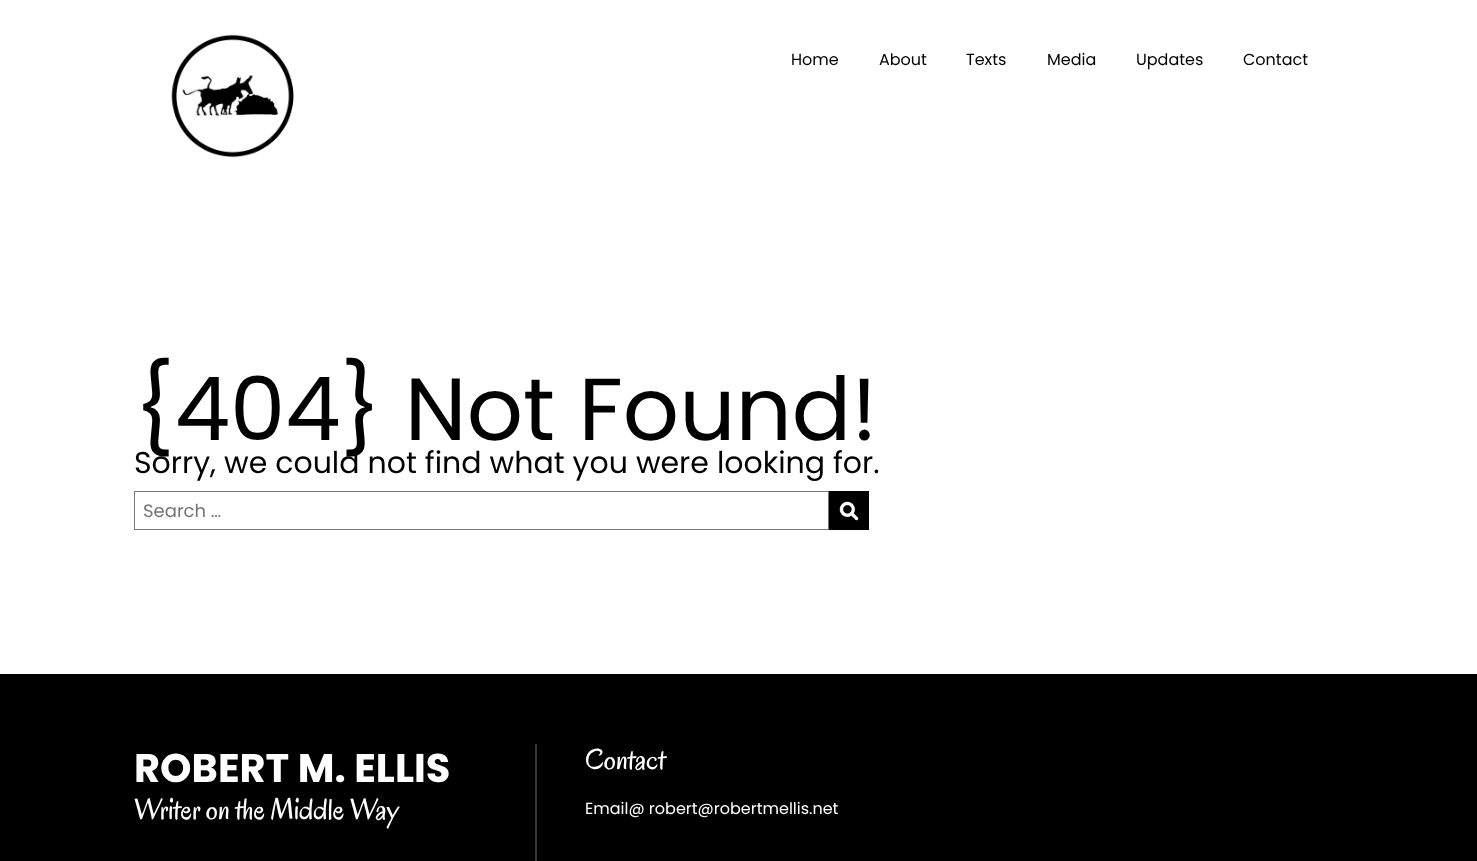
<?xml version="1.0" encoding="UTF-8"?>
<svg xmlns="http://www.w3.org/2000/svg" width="1477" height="861">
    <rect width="100%" height="100%" fill="#FFFFFF"/>
    <image x="171" y="34" width="123" height="124" href="img_01.png"/>
    <text x="791" y="65" font-family="Poppins" font-size="16" fill="#000000">Home</text>
    <text x="879" y="65" font-family="Poppins" font-size="16" fill="#000000">About</text>
    <text x="966" y="65" font-family="Poppins" font-size="16" fill="#000000">Texts</text>
    <text x="1047" y="65" font-family="Poppins" font-size="16" fill="#000000">Media</text>
    <text x="1136" y="65" font-family="Poppins" font-size="16" fill="#000000">Updates</text>
    <text x="1243" y="65" font-family="Poppins" font-size="16" fill="#000000">Contact</text>
    <text x="134" y="440" font-family="Poppins" font-size="88" fill="#000000">{404} Not Found!</text>
    <text x="134" y="473" font-family="Poppins" font-size="30" fill="#000000">Sorry, we could not find what you were looking for.</text>
    <rect x="134.5" y="491.5" width="694" height="38" fill="none" stroke="#777777"/>
    <text x="143" y="517" font-family="Poppins" font-size="18" fill="#757575">Search …</text>
    <rect x="829" y="491" width="40" height="39" fill="#000000"/>
    <image x="839" y="501" width="20" height="20" href="img_02.png"/>
    <rect x="0" y="674" width="1477" height="187" fill="#000000"/>
    <rect x="535" y="744" width="2" height="117" fill="#363636"/>
    <text x="134" y="782" font-family="Poppins" font-size="40" font-weight="700" fill="#FFFFFF">ROBERT M. ELLIS</text>
    <text x="134" y="819" font-family="Oregano" font-size="30" fill="#FFFFFF">Writer on the Middle Way</text>
    <text x="585" y="769" font-family="Oregano" font-size="30" fill="#FFFFFF">Contact</text>
    <text x="585" y="814" font-family="Poppins" font-size="16" fill="#FFFFFF">Email@ robert@robertmellis.net</text>
</svg>
